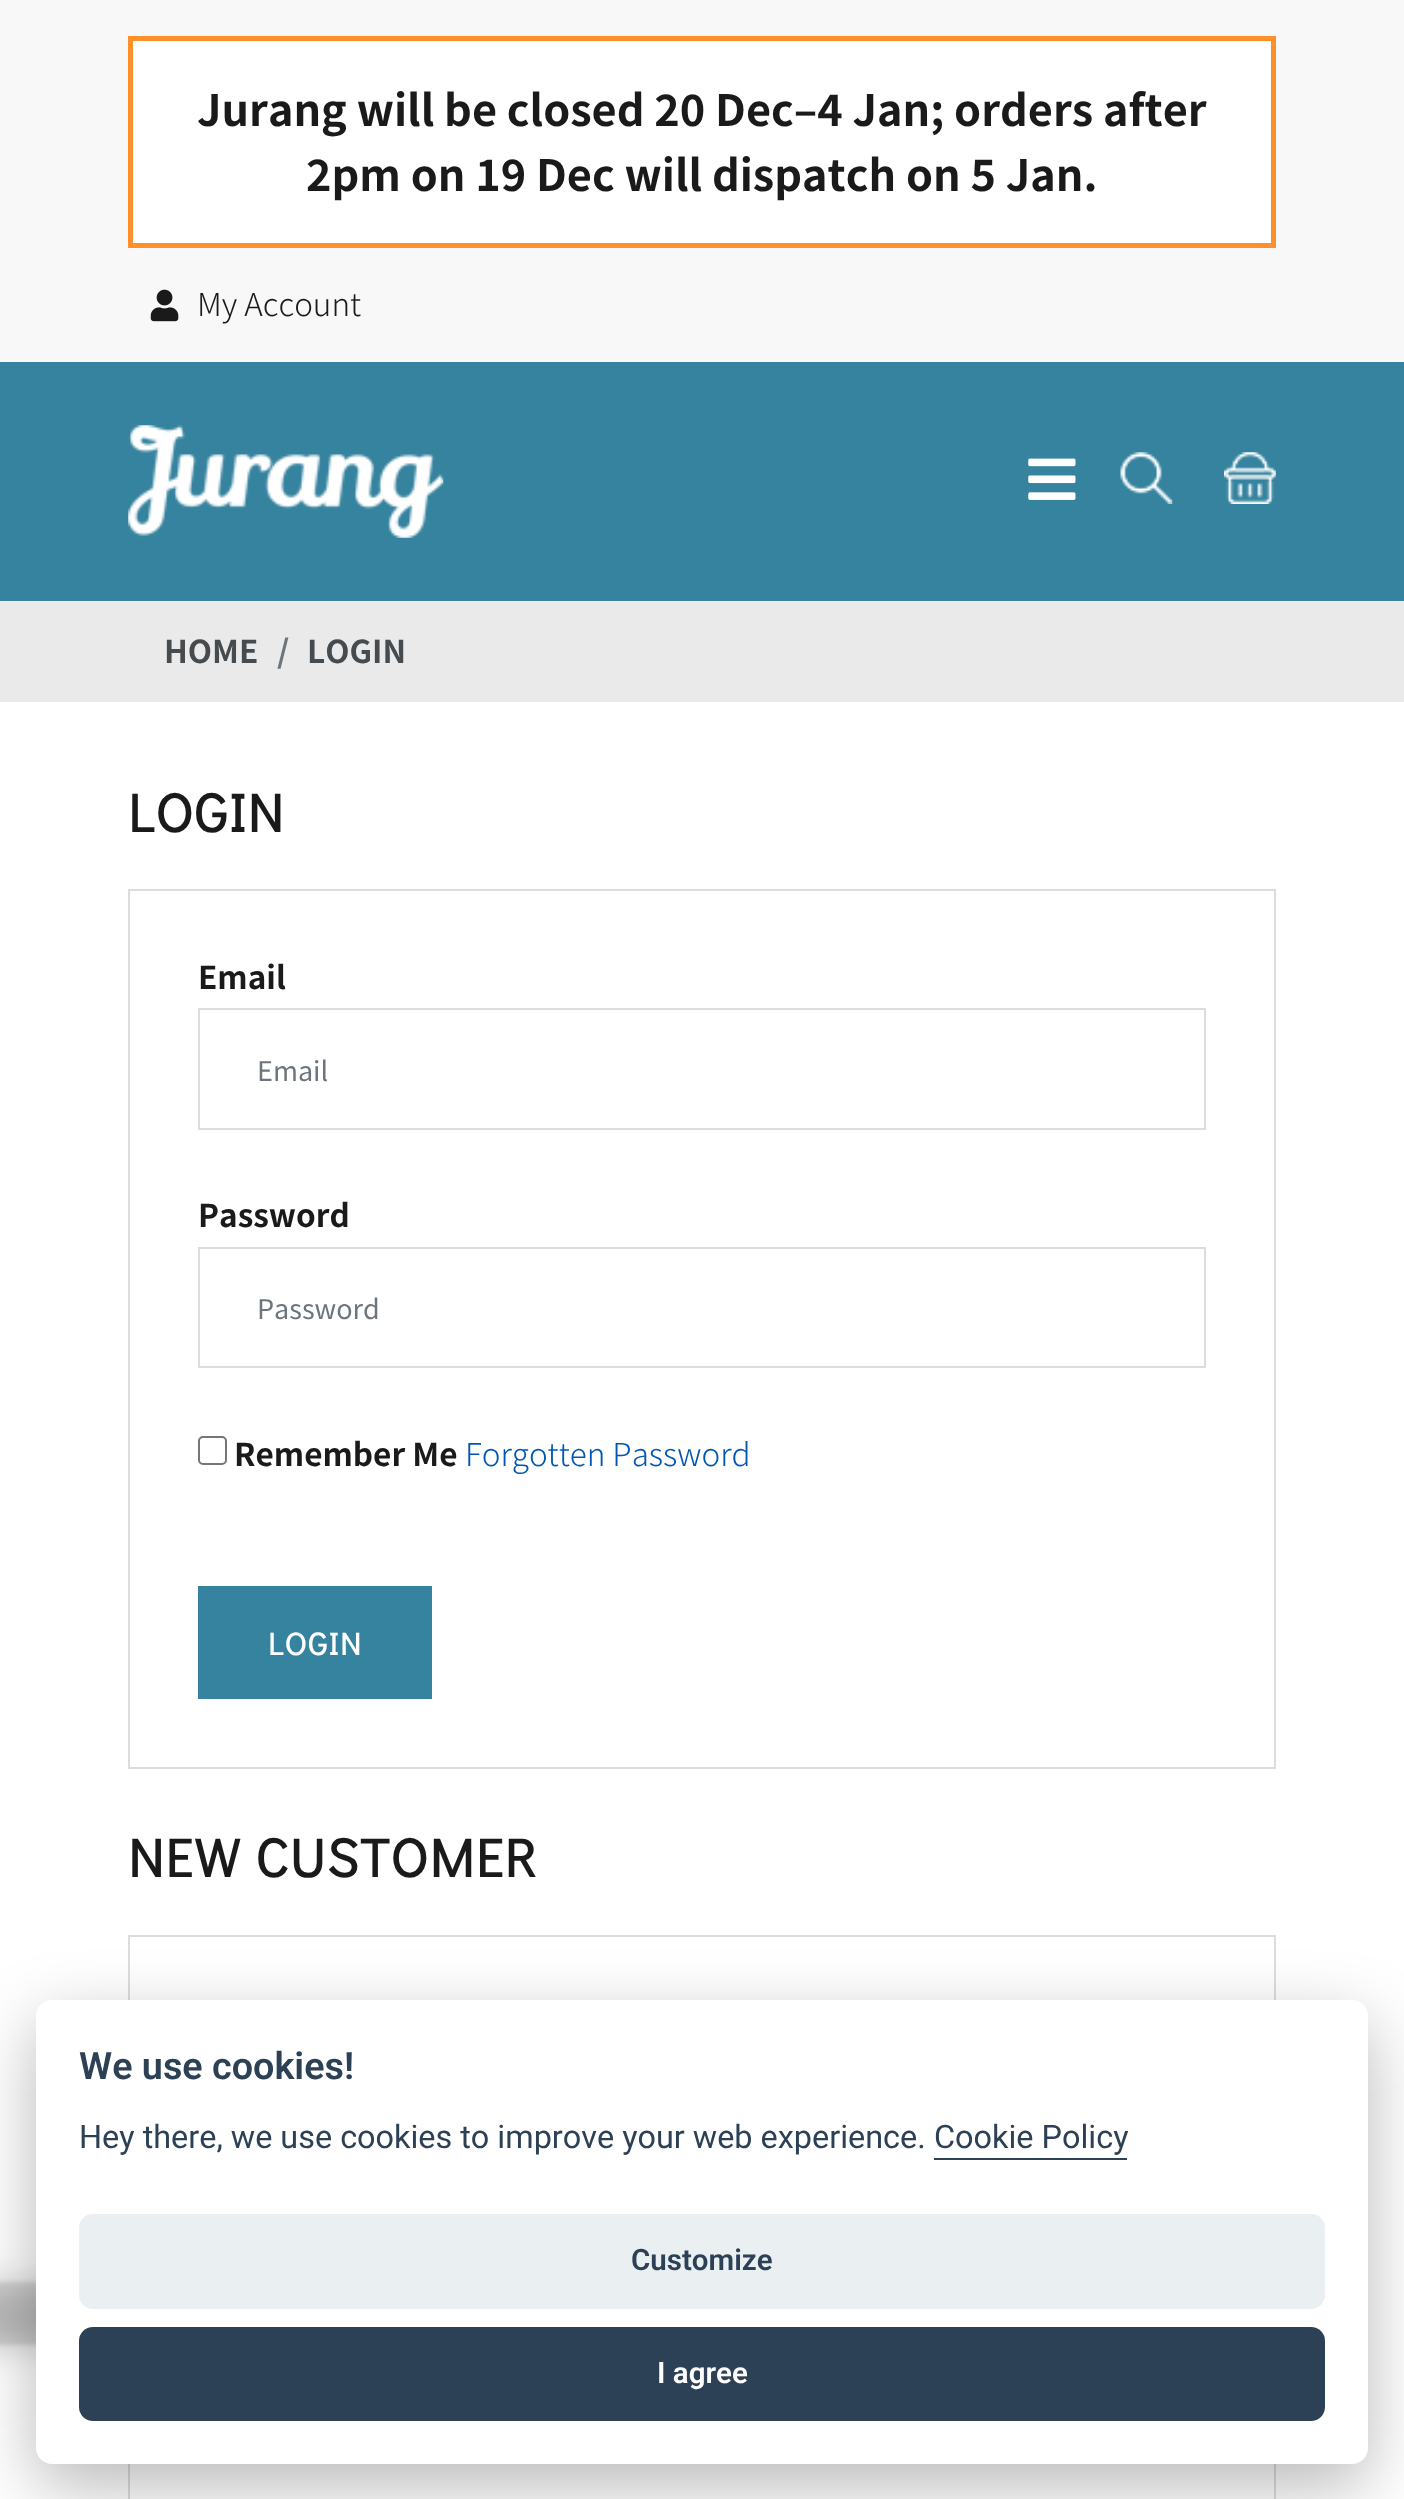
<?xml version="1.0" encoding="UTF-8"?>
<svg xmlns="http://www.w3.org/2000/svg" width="1404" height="2499">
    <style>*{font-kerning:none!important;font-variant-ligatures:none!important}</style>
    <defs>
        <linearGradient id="g1" gradientUnits="userSpaceOnUse" x1="897" y1="2095" x2="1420" y2="1190"><stop offset="0.5" stop-color="#36839F"/><stop offset="0.5" stop-color="#FFFFFF"/></linearGradient>
        <filter id="blur1" x="-50%" y="-200%" width="200%" height="500%"><feGaussianBlur stdDeviation="2"/></filter>
        <filter id="blur2" x="-50%" y="-200%" width="200%" height="500%"><feGaussianBlur stdDeviation="17"/></filter>
        <filter id="blur3" x="-50%" y="-200%" width="200%" height="500%"><feGaussianBlur stdDeviation="34"/></filter>
    </defs>
    <rect width="100%" height="100%" fill="#FFFFFF"/>
    <rect x="0" y="0" width="1404" height="362" fill="#F8F8F8"/>
    <rect x="130.5" y="38.5" width="1143" height="207" fill="#FFFFFF" stroke="#FF8F2B" stroke-width="5"/>
    <text x="197" y="126" font-family="Noto Sans TC" font-size="43.2" font-weight="700" fill="#1A1A1A">Jurang will be closed 20 Dec–4 Jan; orders after</text>
    <text x="306" y="191" font-family="Noto Sans TC" font-size="43.2" font-weight="700" fill="#1A1A1A">2pm on 19 Dec will dispatch on 5 Jan.</text>
    <image x="150" y="289" width="29" height="33" href="img_01.png"/>
    <text x="197" y="316" font-family="Noto Sans TC" font-size="31.5" font-weight="300" fill="#1A1A1A">My Account</text>
    <rect x="0" y="362" width="1404" height="239" fill="#36839F"/>
    <image x="128" y="425" width="316" height="113" href="img_02.png"/>
    <image x="1028" y="458" width="48" height="42" href="img_03.png"/>
    <image x="1120" y="452" width="53" height="52" href="img_04.png"/>
    <image x="1224" y="452" width="52" height="52" href="img_05.png"/>
    <rect x="0" y="601" width="1404" height="101" fill="#EAEAEA"/>
    <text x="164" y="663" font-family="Noto Sans TC" font-size="31.5" font-weight="700" fill="#454B4F">HOME</text>
    <text x="277" y="663" font-family="Noto Sans TC" font-size="31.5" font-weight="700" fill="#6C757D">/</text>
    <text x="307" y="663" font-family="Noto Sans TC" font-size="31.5" font-weight="700" fill="#454B4F">LOGIN</text>
    <text x="128" y="832" font-family="Didact Gothic" font-size="54" font-weight="700" letter-spacing="1.6" fill="#1A1A1A">LOGIN</text>
    <rect x="129" y="890" width="1146" height="878" fill="none" stroke="#DDDDDD" stroke-width="2"/>
    <text x="198" y="989" font-family="Noto Sans TC" font-size="31.5" font-weight="700" fill="#1A1A1A">Email</text>
    <rect x="199" y="1009" width="1006" height="120" fill="none" stroke="#DDDDDD" stroke-width="2"/>
    <text x="257" y="1081" font-family="Noto Sans TC" font-size="27" fill="#6C757D">Email</text>
    <text x="198" y="1227" font-family="Noto Sans TC" font-size="31.5" font-weight="700" fill="#1A1A1A">Password</text>
    <rect x="199" y="1248" width="1006" height="119" fill="none" stroke="#DDDDDD" stroke-width="2"/>
    <text x="257" y="1319" font-family="Noto Sans TC" font-size="27" fill="#6C757D">Password</text>
    <rect x="199" y="1437" width="27" height="27" rx="4" fill="none" stroke="#767676" stroke-width="2"/>
    <text x="234" y="1466" font-family="Noto Sans TC" font-size="31.5" font-weight="700" fill="#1A1A1A">Remember Me</text>
    <text x="465" y="1466" font-family="Noto Sans TC" font-size="31.5" font-weight="300" fill="#0056B3">Forgotten Password</text>
    <rect x="203" y="1591" width="224" height="103" fill="url(#g1)"/>
    <rect x="200.5" y="1588.5" width="229" height="108" fill="none" stroke="#36839F" stroke-width="5"/>
    <text x="268" y="1655" font-family="Didact Gothic" font-size="31.5" font-weight="700" letter-spacing="1.5" fill="#FFFFFF">LOGIN</text>
    <text x="128" y="1877" font-family="Didact Gothic" font-size="54" font-weight="700" letter-spacing="1.6" fill="#1A1A1A">NEW CUSTOMER</text>
    <rect x="129" y="1936" width="1146" height="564" fill="none" stroke="#DDDDDD" stroke-width="2"/>
    <rect x="-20" y="2282" width="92" height="63" rx="14" fill="#000000" fill-opacity="0.1" filter="url(#blur1)"/>
    <rect x="-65" y="2284" width="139" height="63" rx="14" fill="#000000" fill-opacity="0.2" filter="url(#blur2)"/>
    <rect x="36" y="2023" width="1332" height="463" rx="16" fill="#020203" fill-opacity="0.28" filter="url(#blur3)"/>
    <rect x="36" y="2000" width="1332" height="464" rx="16" fill="#FFFFFF"/>
    <text x="79" y="2079" font-family="Roboto" font-size="37.75" font-weight="600" fill="#2D4156">We use cookies!</text>
    <text x="79" y="2148" font-family="Roboto" font-size="32.4" fill="#2D4156">Hey there, we use cookies to improve your web experience.</text>
    <text x="934" y="2148" font-family="Roboto" font-size="32.4" fill="#2D4156">Cookie Policy</text>
    <rect x="934" y="2158" width="193" height="2" fill="#2D4156"/>
    <rect x="79" y="2214" width="1246" height="95" rx="14" fill="#EAEFF2"/>
    <text x="631" y="2270" font-family="Roboto" font-size="29.5" font-weight="600" fill="#2D4156">Customize</text>
    <rect x="79" y="2327" width="1246" height="94" rx="14" fill="#2D4156"/>
    <text x="657" y="2383" font-family="Roboto" font-size="29.5" font-weight="600" fill="#FFFFFF">I agree</text>
</svg>
